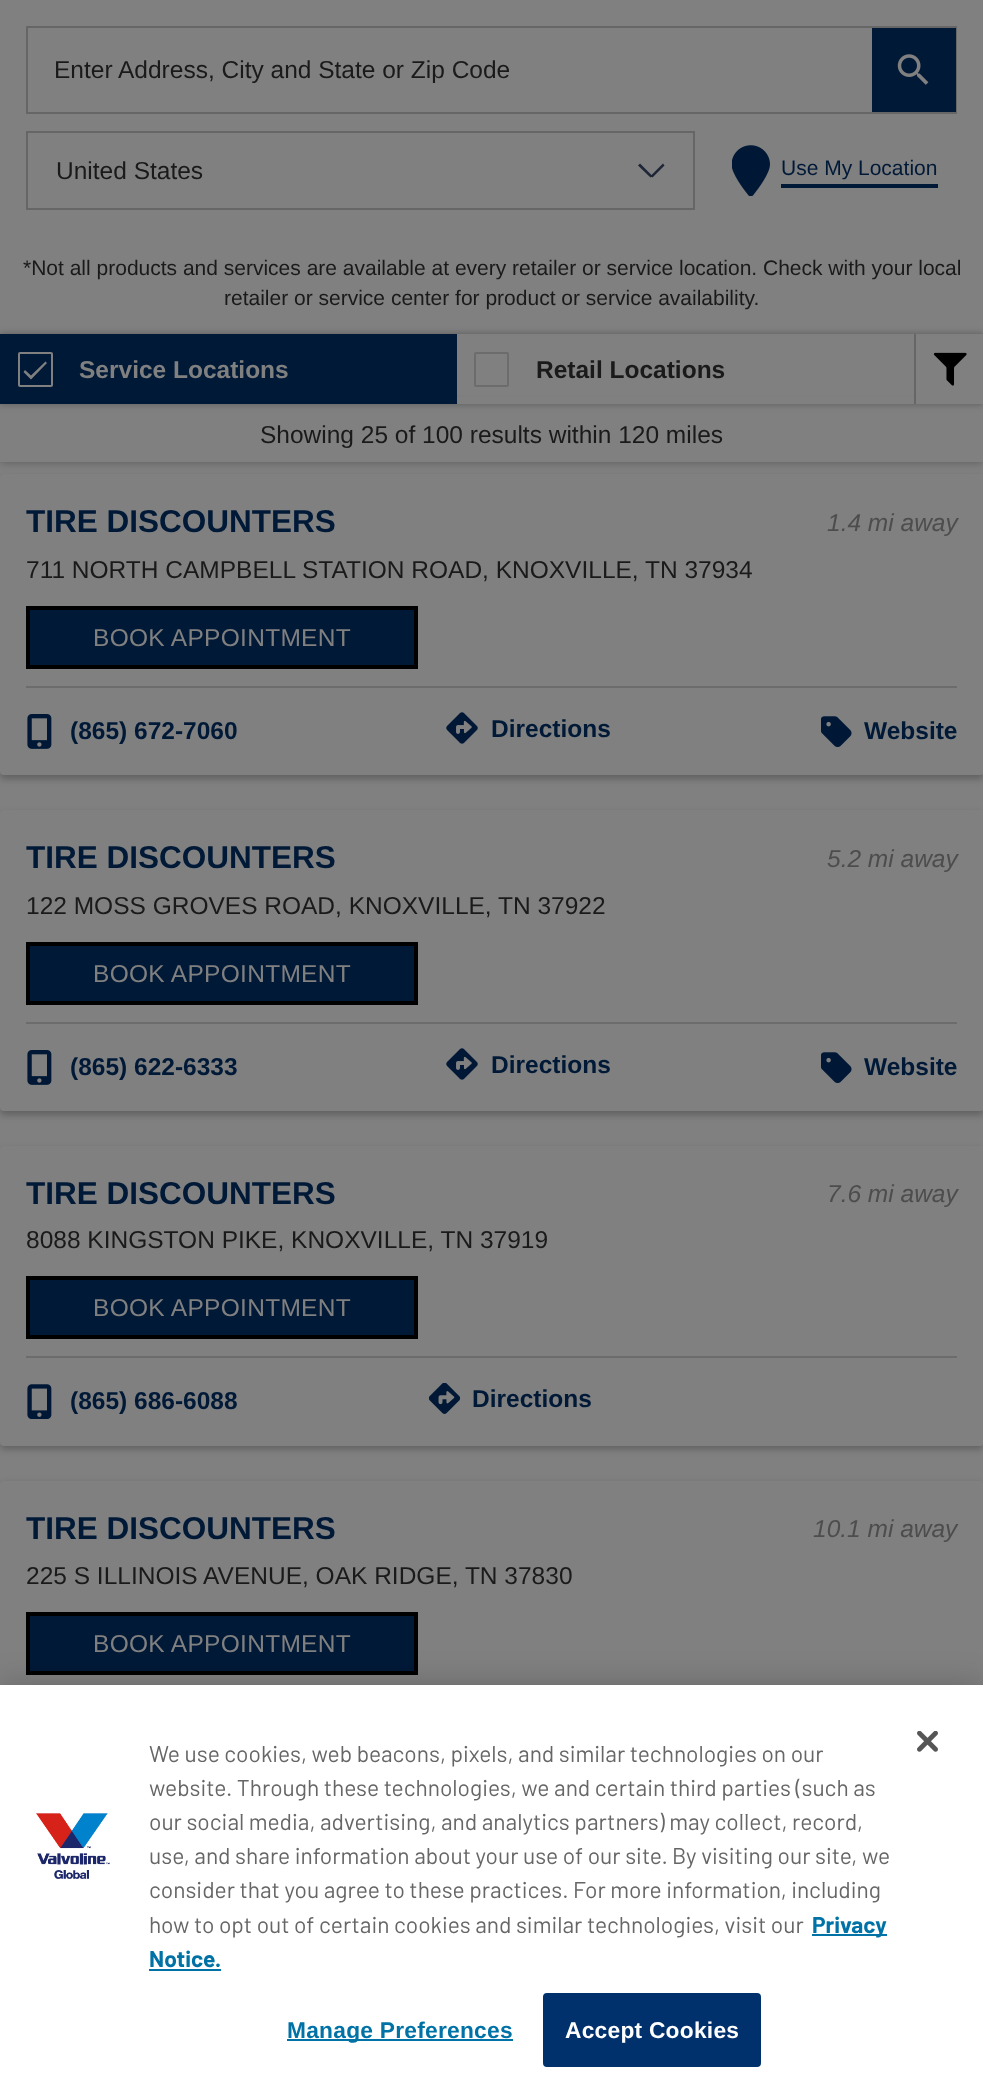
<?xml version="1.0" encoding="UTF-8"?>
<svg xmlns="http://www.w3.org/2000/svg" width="983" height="2083">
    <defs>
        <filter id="blur1" x="-50%" y="-200%" width="200%" height="500%"><feGaussianBlur stdDeviation="3.5"/></filter>
        <filter id="blur2" x="-50%" y="-200%" width="200%" height="500%"><feGaussianBlur stdDeviation="5"/></filter>
        <clipPath id="clip1"><path d="M 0 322 H 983 V 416 H 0 Z M 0 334 H 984 V 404 H 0 Z" clip-rule="evenodd"/></clipPath>
        <filter id="blur3" x="-50%" y="-200%" width="200%" height="500%"><feGaussianBlur stdDeviation="16"/></filter>
    </defs>
    <rect width="100%" height="100%" fill="#808080"/>
    <rect x="27" y="27" width="929" height="86" fill="none" stroke="#666666" stroke-width="2"/>
    <text x="54" y="78" font-family="Liberation Sans" font-size="24.5" fill="#1A1A1A">Enter Address, City and State or Zip Code</text>
    <rect x="872" y="28" width="84" height="84" fill="#001937"/>
    <image x="897" y="54" width="32" height="31" href="img_01.png"/>
    <rect x="27" y="132" width="667" height="77" fill="none" stroke="#666666" stroke-width="2"/>
    <text x="56" y="179" font-family="Liberation Sans" font-size="24.5" fill="#1A1A1A">United States</text>
    <path d="M 638 165.5 L 640 163.5 L 652.5 176 L 650.5 177.5 Z" fill="#1D2537"/>
    <path d="M 663 163.5 L 664.5 165.5 L 652.5 177.5 L 650.5 176 Z" fill="#1D2537"/>
    <image x="732" y="145" width="38" height="51" href="img_02.png"/>
    <rect x="781" y="184" width="157" height="4" fill="#001937"/>
    <text x="781" y="175" font-family="Liberation Sans" font-size="21" fill="#001937">Use My Location</text>
    <text x="23" y="275" font-family="Liberation Sans" font-size="21" fill="#1A1A1A">*Not all products and services are available at every retailer or service location. Check with your local</text>
    <text x="224" y="305" font-family="Liberation Sans" font-size="21" fill="#1A1A1A">retailer or service center for product or service availability.</text>
    <rect x="0" y="478" width="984" height="301" rx="4" fill="#000000" fill-opacity="0.25" filter="url(#blur1)"/>
    <rect x="0" y="474" width="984" height="301" rx="4" fill="#808080"/>
    <rect x="0" y="404" width="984" height="58" fill="#000000" fill-opacity="0.3" filter="url(#blur2)"/>
    <rect x="457" y="397" width="457" height="7" fill="#808080"/>
    <rect x="0" y="404" width="983" height="58" fill="#808080"/>
    <g clip-path="url(#clip1)">
        <rect x="0" y="334" width="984" height="70" fill="#000000" fill-opacity="0.3" filter="url(#blur1)"/>
    </g>
    <rect x="0" y="334" width="457" height="70" fill="#001937"/>
    <path d="M 31 375.5 L 25 370 L 23.5 372 L 31 379.5 L 47 363 L 45.5 361.5 Z" fill="#808080"/>
    <rect x="19" y="353" width="33" height="33" rx="1" fill="none" stroke="#808080" stroke-width="2"/>
    <text x="79" y="378" font-family="Liberation Sans" font-size="24.5" font-weight="700" fill="#808080">Service Locations</text>
    <rect x="475" y="353" width="33" height="33" rx="1" fill="none" stroke="#6C6C6C" stroke-width="2"/>
    <text x="536" y="378" font-family="Liberation Sans" font-size="24.5" font-weight="700" fill="#1A1A1A">Retail Locations</text>
    <rect x="916" y="334" width="67" height="70" fill="#808080"/>
    <rect x="914" y="334" width="2" height="70" fill="#666666"/>
    <image x="933" y="352" width="34" height="34" href="img_03.png"/>
    <text x="260" y="443" font-family="Liberation Sans" font-size="24.5" fill="#1A1A1A">Showing 25 of 100 results within 120 miles</text>
    <text x="26" y="532" font-family="Liberation Sans" font-size="31.5" font-weight="700" fill="#001937">TIRE DISCOUNTERS</text>
    <text x="827" y="531" font-family="Liberation Sans" font-size="24.5" font-style="italic" fill="#4D4D4D">1.4 mi away</text>
    <text x="26" y="578" font-family="Liberation Sans" font-size="24.5" fill="#1A1A1A">711 NORTH CAMPBELL STATION ROAD, KNOXVILLE, TN 37934</text>
    <rect x="28" y="608" width="388" height="59" fill="#001937" stroke="#000000" stroke-width="4"/>
    <text x="93" y="646" font-family="Liberation Sans" font-size="24.5" letter-spacing="0.3" fill="#808080">BOOK APPOINTMENT</text>
    <rect x="26" y="686" width="931" height="2" fill="#6C6C6C"/>
    <image x="27" y="714" width="25" height="35" href="img_04.png"/>
    <text x="70" y="739" font-family="Liberation Sans" font-size="24.5" font-weight="700" fill="#001937">(865) 672-7060</text>
    <image x="446" y="712" width="32" height="32" href="img_05.png"/>
    <text x="491" y="737" font-family="Liberation Sans" font-size="24.5" font-weight="700" fill="#001937">Directions</text>
    <image x="821" y="716" width="31" height="31" href="img_06.png"/>
    <text x="864" y="739" font-family="Liberation Sans" font-size="24.5" font-weight="700" fill="#001937">Website</text>
    <rect x="0" y="814" width="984" height="301" rx="4" fill="#000000" fill-opacity="0.25" filter="url(#blur1)"/>
    <rect x="0" y="810" width="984" height="301" rx="4" fill="#808080"/>
    <text x="26" y="868" font-family="Liberation Sans" font-size="31.5" font-weight="700" fill="#001937">TIRE DISCOUNTERS</text>
    <text x="827" y="867" font-family="Liberation Sans" font-size="24.5" font-style="italic" fill="#4D4D4D">5.2 mi away</text>
    <text x="26" y="914" font-family="Liberation Sans" font-size="24.5" fill="#1A1A1A">122 MOSS GROVES ROAD, KNOXVILLE, TN 37922</text>
    <rect x="28" y="944" width="388" height="59" fill="#001937" stroke="#000000" stroke-width="4"/>
    <text x="93" y="982" font-family="Liberation Sans" font-size="24.5" letter-spacing="0.3" fill="#808080">BOOK APPOINTMENT</text>
    <rect x="26" y="1022" width="931" height="2" fill="#6C6C6C"/>
    <image x="27" y="1050" width="25" height="35" href="img_04.png"/>
    <text x="70" y="1075" font-family="Liberation Sans" font-size="24.5" font-weight="700" fill="#001937">(865) 622-6333</text>
    <image x="446" y="1048" width="32" height="32" href="img_05.png"/>
    <text x="491" y="1073" font-family="Liberation Sans" font-size="24.5" font-weight="700" fill="#001937">Directions</text>
    <image x="821" y="1052" width="31" height="31" href="img_06.png"/>
    <text x="864" y="1075" font-family="Liberation Sans" font-size="24.5" font-weight="700" fill="#001937">Website</text>
    <rect x="0" y="1150" width="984" height="299" rx="4" fill="#000000" fill-opacity="0.25" filter="url(#blur1)"/>
    <rect x="0" y="1146" width="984" height="300" rx="4" fill="#808080"/>
    <text x="26" y="1204" font-family="Liberation Sans" font-size="31.5" font-weight="700" fill="#001937">TIRE DISCOUNTERS</text>
    <text x="827" y="1202" font-family="Liberation Sans" font-size="24.5" font-style="italic" fill="#4D4D4D">7.6 mi away</text>
    <text x="26" y="1248" font-family="Liberation Sans" font-size="24.5" fill="#1A1A1A">8088 KINGSTON PIKE, KNOXVILLE, TN 37919</text>
    <rect x="28" y="1278" width="388" height="59" fill="#001937" stroke="#000000" stroke-width="4"/>
    <text x="93" y="1316" font-family="Liberation Sans" font-size="24.5" letter-spacing="0.3" fill="#808080">BOOK APPOINTMENT</text>
    <rect x="26" y="1356" width="931" height="2" fill="#6C6C6C"/>
    <image x="27" y="1384" width="25" height="35" href="img_07.png"/>
    <text x="70" y="1409" font-family="Liberation Sans" font-size="24.5" font-weight="700" fill="#001937">(865) 686-6088</text>
    <image x="429" y="1383" width="31" height="31" href="img_08.png"/>
    <text x="472" y="1407" font-family="Liberation Sans" font-size="24.5" font-weight="700" fill="#001937">Directions</text>
    <rect x="0" y="1484" width="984" height="301" rx="4" fill="#000000" fill-opacity="0.25" filter="url(#blur1)"/>
    <rect x="0" y="1481" width="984" height="301" rx="4" fill="#808080"/>
    <text x="26" y="1539" font-family="Liberation Sans" font-size="31.5" font-weight="700" fill="#001937">TIRE DISCOUNTERS</text>
    <text x="813" y="1537" font-family="Liberation Sans" font-size="24.5" font-style="italic" fill="#4D4D4D">10.1 mi away</text>
    <text x="26" y="1584" font-family="Liberation Sans" font-size="24.5" fill="#1A1A1A">225 S ILLINOIS AVENUE, OAK RIDGE, TN 37830</text>
    <rect x="28" y="1614" width="388" height="59" fill="#001937" stroke="#000000" stroke-width="4"/>
    <text x="93" y="1652" font-family="Liberation Sans" font-size="24.5" letter-spacing="0.3" fill="#808080">BOOK APPOINTMENT</text>
    <rect x="0" y="1685" width="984" height="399" fill="#000000" fill-opacity="0.2" filter="url(#blur3)"/>
    <rect x="0" y="1685" width="983" height="398" fill="#FFFFFF"/>
    <image x="917" y="1731" width="21" height="21" href="img_09.png"/>
    <image x="36" y="1813" width="74" height="66" href="img_10.png"/>
    <text font-family="Barlow" font-size="22.75" fill="#666666">
        <tspan x="149" y="1762">We use cookies, web beacons, pixels, and similar technologies on our</tspan>
        <tspan x="149" y="1796">website. Through these technologies, we and certain third parties (such as</tspan>
        <tspan x="149" y="1830">our social media, advertising, and analytics partners) may collect, record,</tspan>
        <tspan x="149" y="1864">use, and share information about your use of our site.</tspan>
    </text>
    <text x="672" y="1864" font-family="Barlow" font-size="22.75" fill="#666666">By visiting our site, we</text>
    <text font-family="Barlow" font-size="22.75" fill="#666666">
        <tspan x="149" y="1898">consider that you agree to these practices. For more information, including</tspan>
        <tspan x="149" y="1933">how to opt out of certain cookies and similar technologies, visit our</tspan>
    </text>
    <rect x="812" y="1934" width="75" height="2" fill="#0072A6"/>
    <text x="812" y="1933" font-family="Barlow" font-size="22.75" font-weight="700" fill="#0072A6">Privacy</text>
    <text x="149" y="1967" font-family="Barlow" font-size="22.75" font-weight="700" fill="#0072A6">Notice.</text>
    <rect x="149" y="1969" width="72" height="2" fill="#0072A6"/>
    <rect x="287" y="2039" width="226" height="2" fill="#0072A6"/>
    <text x="287" y="2038" font-family="Liberation Sans" font-size="22.75" font-weight="700" letter-spacing="0.25" fill="#0072A6">Manage Preferences</text>
    <rect x="544" y="1994" width="216" height="72" rx="3" fill="#00316D" stroke="#00316D" stroke-width="2"/>
    <text x="565" y="2038" font-family="Liberation Sans" font-size="22.75" font-weight="700" letter-spacing="0.25" fill="#FFFFFF">Accept Cookies</text>
</svg>
